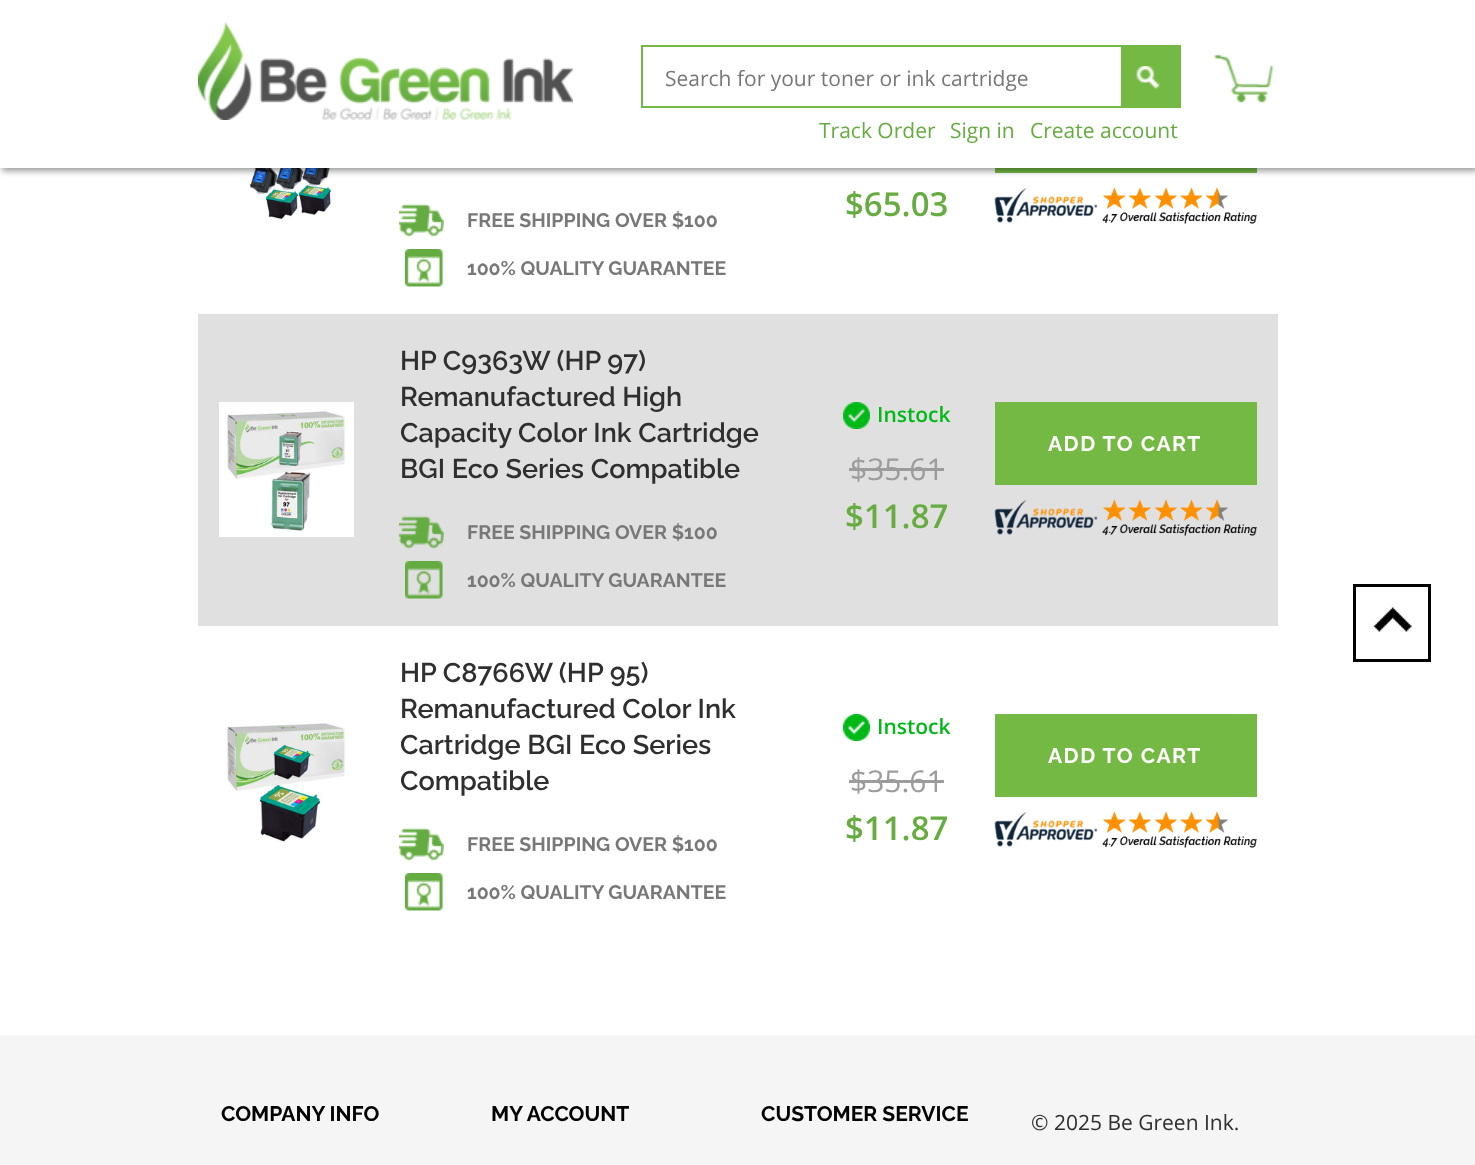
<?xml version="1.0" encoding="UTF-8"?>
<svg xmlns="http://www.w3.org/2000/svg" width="1475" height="1165">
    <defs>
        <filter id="blur1" x="-50%" y="-200%" width="200%" height="500%"><feGaussianBlur stdDeviation="3"/></filter>
    </defs>
    <rect width="100%" height="100%" fill="#FFFFFF"/>
    <image x="225" y="168" width="120" height="52" href="img_04.png"/>
    <rect x="995" y="168" width="262" height="5" fill="#75B945"/>
    <rect x="2" y="3" width="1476" height="168" fill="#000000" fill-opacity="0.4" filter="url(#blur1)"/>
    <rect x="0" y="0" width="1475" height="168" fill="#FFFFFF"/>
    <image x="198" y="22" width="375" height="98" href="img_01.png"/>
    <rect x="642" y="46" width="538" height="61" fill="none" stroke="#75B945" stroke-width="2"/>
    <text x="665" y="86" font-family="Open Sans" font-size="21" fill="#787878">Search for your toner or ink cartridge</text>
    <rect x="1121" y="47" width="58" height="59" fill="#75B945"/>
    <image x="1136" y="66" width="25" height="23" href="img_02.png"/>
    <image x="1214" y="53" width="60" height="50" href="img_03.png"/>
    <text x="819" y="138" font-family="Open Sans" font-size="21" fill="#66AC41">Track Order</text>
    <text x="950" y="138" font-family="Open Sans" font-size="21" fill="#66AC41">Sign in</text>
    <text x="1030" y="138" font-family="Open Sans" font-size="21" fill="#66AC41">Create account</text>
    <text x="845" y="216" font-family="Open Sans" font-size="33" font-weight="600" fill="#66AC41">$65.03</text>
    <image x="994" y="187" width="263" height="37" href="img_05.png"/>
    <image x="399" y="203" width="45" height="35" href="img_06.png"/>
    <text x="467" y="227" font-family="Raleway" font-size="19.5" font-weight="700" fill="#787878">FREE SHIPPING OVER $100</text>
    <image x="405" y="249" width="38" height="38" href="img_07.png"/>
    <text x="467" y="275" font-family="Raleway" font-size="19.5" font-weight="700" fill="#787878">100% QUALITY GUARANTEE</text>
    <rect x="198" y="314" width="1080" height="312" fill="#E0E0E0"/>
    <image x="219" y="402" width="135" height="135" href="img_08.png"/>
    <text font-family="Raleway" font-size="27" font-weight="600" fill="#2F2F2F">
        <tspan x="400" y="370">HP C9363W (HP 97)</tspan>
        <tspan x="400" y="406">Remanufactured High</tspan>
        <tspan x="400" y="442">Capacity Color Ink Cartridge</tspan>
        <tspan x="400" y="478">BGI Eco Series Compatible</tspan>
    </text>
    <image x="399" y="515" width="45" height="35" href="img_09.png"/>
    <text x="467" y="539" font-family="Raleway" font-size="19.5" font-weight="700" fill="#787878">FREE SHIPPING OVER $100</text>
    <image x="405" y="561" width="38" height="38" href="img_10.png"/>
    <text x="467" y="587" font-family="Raleway" font-size="19.5" font-weight="700" fill="#787878">100% QUALITY GUARANTEE</text>
    <image x="843" y="402" width="27" height="27" href="img_11.png"/>
    <text x="877" y="422" font-family="Open Sans" font-size="21" font-weight="600" fill="#00B816">Instock</text>
    <text x="850" y="480" font-family="Open Sans" font-size="30" fill="#9C9C9C">$35.61</text>
    <rect x="849" y="468" width="95" height="3" fill="#9C9C9C"/>
    <text x="845" y="528" font-family="Open Sans" font-size="33" font-weight="600" fill="#66AC41">$11.87</text>
    <rect x="995" y="402" width="262" height="83" fill="#75B945"/>
    <text x="1048" y="451" font-family="Raleway" font-size="21" font-weight="700" letter-spacing="1.5" fill="#FFFFFF">ADD TO CART</text>
    <image x="994" y="499" width="263" height="37" href="img_12.png"/>
    <image x="225" y="723" width="120" height="120" href="img_13.png"/>
    <text font-family="Raleway" font-size="27" font-weight="600" fill="#2F2F2F">
        <tspan x="400" y="682">HP C8766W (HP 95)</tspan>
        <tspan x="400" y="718">Remanufactured Color Ink</tspan>
        <tspan x="400" y="754">Cartridge BGI Eco Series</tspan>
        <tspan x="400" y="790">Compatible</tspan>
    </text>
    <image x="399" y="827" width="45" height="35" href="img_06.png"/>
    <text x="467" y="851" font-family="Raleway" font-size="19.5" font-weight="700" fill="#787878">FREE SHIPPING OVER $100</text>
    <image x="405" y="873" width="38" height="38" href="img_07.png"/>
    <text x="467" y="899" font-family="Raleway" font-size="19.5" font-weight="700" fill="#787878">100% QUALITY GUARANTEE</text>
    <image x="843" y="714" width="27" height="27" href="img_14.png"/>
    <text x="877" y="734" font-family="Open Sans" font-size="21" font-weight="600" fill="#00B816">Instock</text>
    <text x="850" y="792" font-family="Open Sans" font-size="30" fill="#9C9C9C">$35.61</text>
    <rect x="849" y="780" width="95" height="3" fill="#9C9C9C"/>
    <text x="845" y="840" font-family="Open Sans" font-size="33" font-weight="600" fill="#66AC41">$11.87</text>
    <rect x="995" y="714" width="262" height="83" fill="#75B945"/>
    <text x="1048" y="763" font-family="Raleway" font-size="21" font-weight="700" letter-spacing="1.5" fill="#FFFFFF">ADD TO CART</text>
    <image x="994" y="811" width="263" height="37" href="img_05.png"/>
    <image x="1373" y="607" width="39" height="25" href="img_15.png"/>
    <rect x="1354.5" y="585.5" width="75" height="75" fill="none" stroke="#000000" stroke-width="3"/>
    <rect x="0" y="1035" width="1475" height="130" fill="#F5F5F5"/>
    <text x="221" y="1121" font-family="Raleway" font-size="21" font-weight="700" fill="#000000">COMPANY INFO</text>
    <text x="491" y="1121" font-family="Raleway" font-size="21" font-weight="700" fill="#000000">MY ACCOUNT</text>
    <text x="761" y="1121" font-family="Raleway" font-size="21" font-weight="700" fill="#000000">CUSTOMER SERVICE</text>
    <text x="1031" y="1130" font-family="Open Sans" font-size="21" fill="#2F2F2F">© 2025 Be Green Ink.</text>
</svg>
